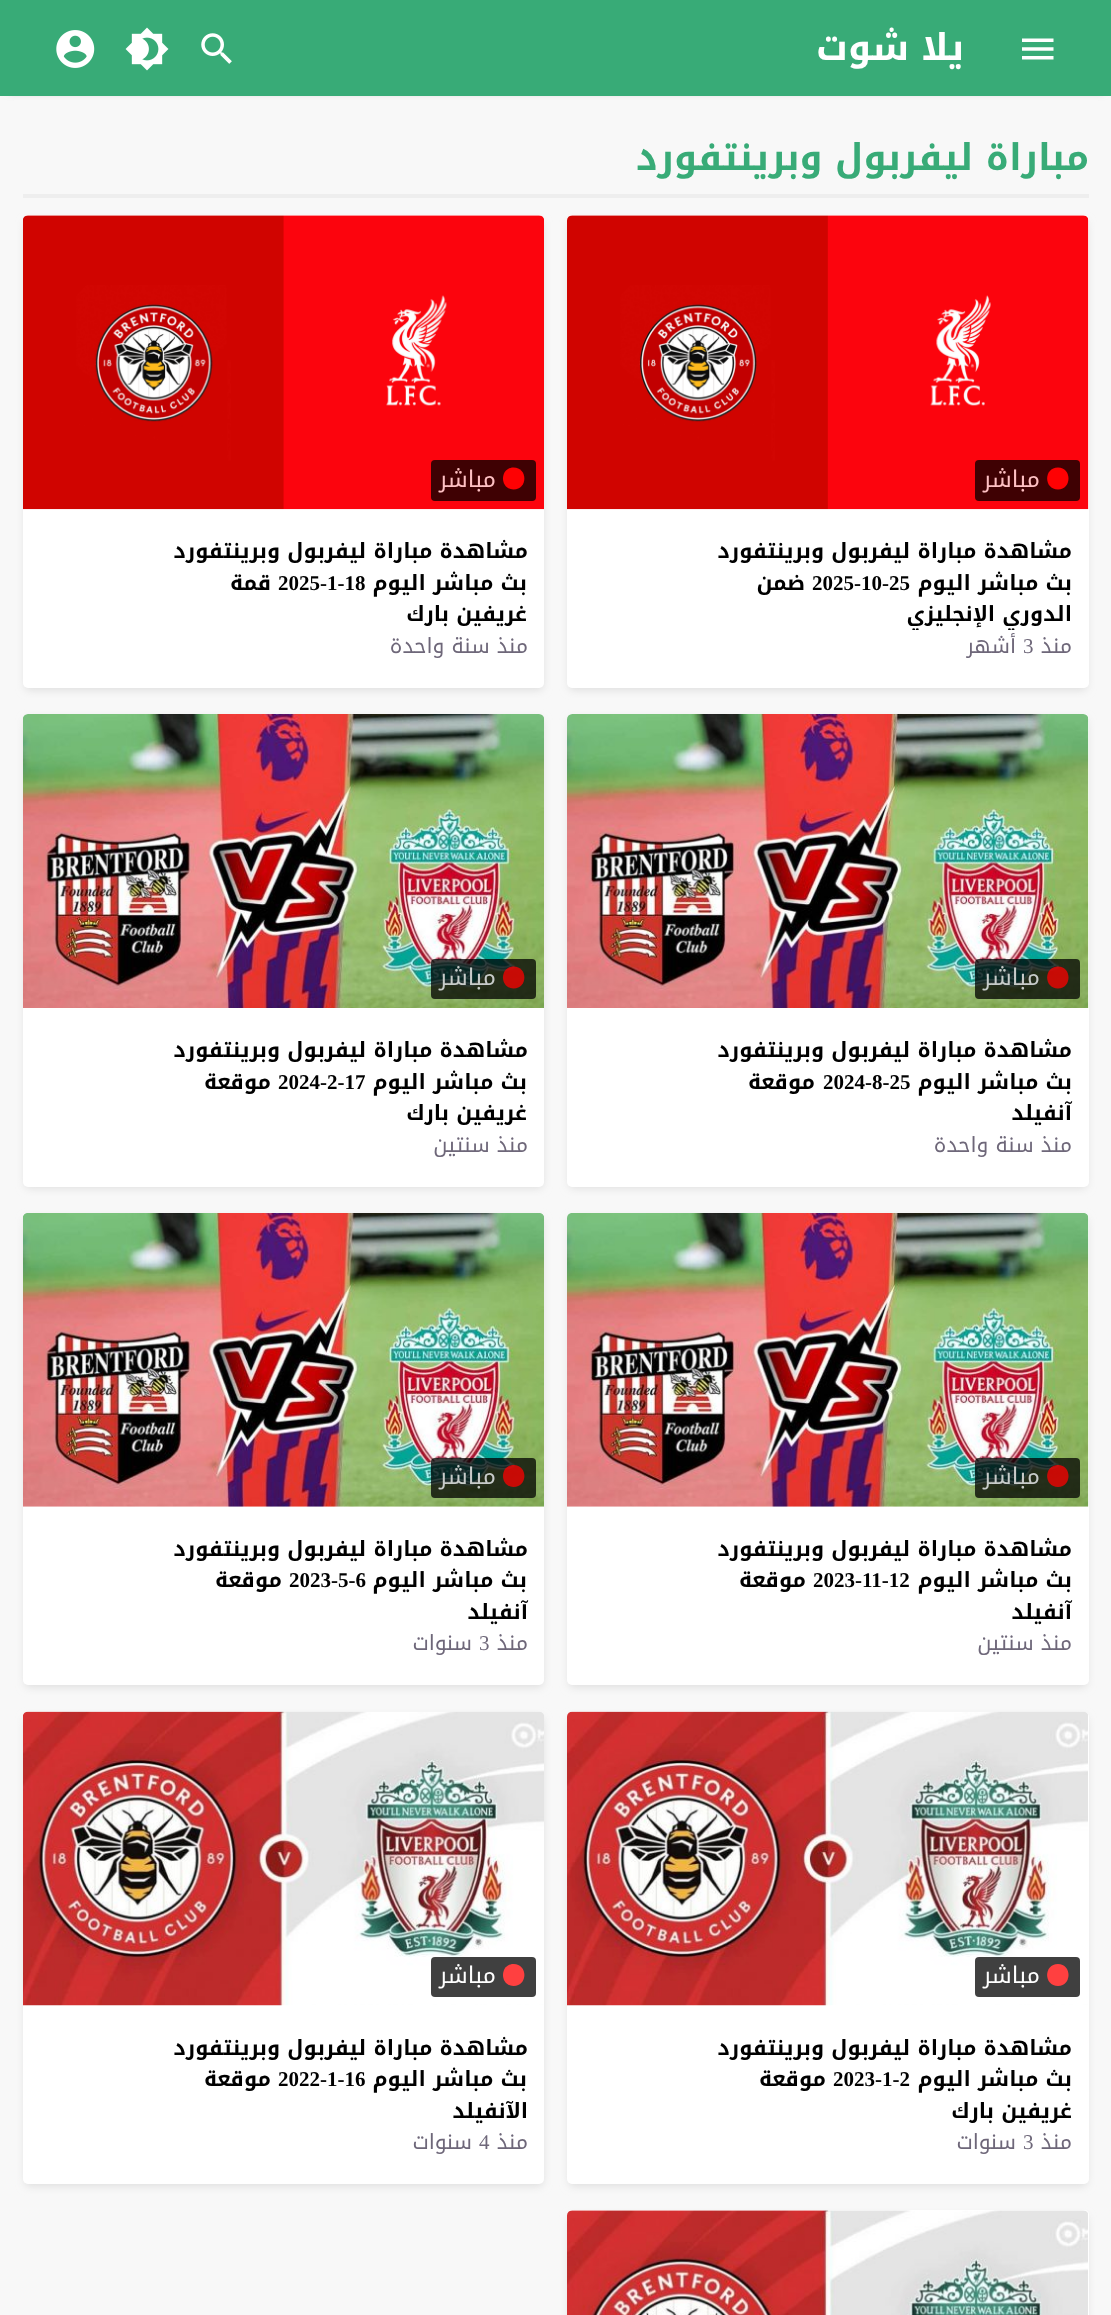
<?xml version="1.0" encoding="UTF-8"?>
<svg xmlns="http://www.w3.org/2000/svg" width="1111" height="2315">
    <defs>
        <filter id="blur1" x="-50%" y="-200%" width="200%" height="500%"><feGaussianBlur stdDeviation="4.5"/></filter>
        <clipPath id="clip1"><rect x="705" y="536" width="366" height="94"/></clipPath>
    </defs>
    <rect width="100%" height="100%" fill="#F8F8F8"/>
    <rect x="9" y="12" width="1094" height="79" fill="#999999" filter="url(#blur1)"/>
    <rect x="0" y="0" width="1111" height="96" fill="#38AB77"/>
    <image x="1022" y="38" width="32" height="22" href="img_01.png"/>
    <text x="964" y="60" font-family="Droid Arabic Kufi" font-size="36.75" font-weight="700" direction="rtl" fill="#FFFFFF">يلا شوت</text>
    <image x="201" y="33" width="31" height="31" href="img_02.png"/>
    <image x="125" y="27" width="44" height="44" href="img_03.png"/>
    <image x="56" y="30" width="39" height="38" href="img_04.png"/>
    <rect x="23" y="194" width="1066" height="4" fill="#EEEEEE"/>
    <text x="1089" y="170" font-family="Droid Arabic Kufi" font-size="36.75" font-weight="700" direction="rtl" fill="#38AB77">مباراة ليفربول وبرينتفورد</text>
    <rect x="569" y="221" width="518" height="469" rx="4" fill="#DDDDDD" filter="url(#blur1)"/>
    <rect x="567" y="215" width="522" height="473" rx="5" fill="#FFFFFF"/>
    <image x="567" y="215" width="522" height="295" href="img_05.png"/>
    <rect x="975" y="460" width="105" height="41" rx="4" fill="#3F0103"/>
    <path d="M 1058 467.5 C 1043.5 467.5 1043.5 489.5 1058 489.5 C 1072 489.5 1072 467.5 1058 467.5 Z" fill="#FE0103"/>
    <text x="1040" y="487" font-family="Droid Arabic Kufi" font-size="23" direction="rtl" fill="#FEC0C3">مباشر</text>
    <text font-family="Droid Arabic Kufi" font-size="21" font-weight="700" direction="rtl" fill="#000000">
        <tspan x="1072" y="558">مشاهدة مباراة ليفربول وبرينتفورد</tspan>
        <tspan x="1072" y="590">بث مباشر اليوم</tspan>
    </text>
    <text x="812" y="590" font-family="Liberation Serif" font-size="21" font-weight="700" fill="#000000">2025-10-25</text>
    <text x="805" y="590" font-family="Droid Arabic Kufi" font-size="21" font-weight="700" direction="rtl" fill="#000000">ضمن</text>
    <g clip-path="url(#clip1)">
        <text x="1072" y="621" font-family="Droid Arabic Kufi" font-size="21" font-weight="700" direction="rtl" fill="#000000">الدوري الإنجليزي</text>
    </g>
    <text x="1072" y="653" font-family="Droid Arabic Kufi" font-size="21" direction="rtl" fill="#6E6779">منذ</text>
    <text x="1023" y="653" font-family="Liberation Serif" font-size="21" fill="#6E6779">3</text>
    <text x="1016" y="653" font-family="Droid Arabic Kufi" font-size="21" direction="rtl" fill="#6E6779">أشهر</text>
    <rect x="25" y="221" width="518" height="469" rx="4" fill="#DDDDDD" filter="url(#blur1)"/>
    <rect x="23" y="215" width="521" height="473" rx="5" fill="#FFFFFF"/>
    <image x="23" y="215" width="521" height="295" href="img_06.png"/>
    <rect x="431" y="460" width="105" height="41" rx="4" fill="#3F0103"/>
    <path d="M 513.5 467.5 C 499.5 467.5 499.5 489.5 513.5 489.5 C 528 489.5 528 467.5 513.5 467.5 Z" fill="#FE0103"/>
    <text x="496" y="487" font-family="Droid Arabic Kufi" font-size="23" direction="rtl" fill="#FEC0C3">مباشر</text>
    <text x="528" y="558" font-family="Droid Arabic Kufi" font-size="21" font-weight="700" direction="rtl" fill="#000000">مشاهدة مباراة ليفربول وبرينتفورد</text>
    <text x="527" y="590" font-family="Droid Arabic Kufi" font-size="21" font-weight="700" direction="rtl" fill="#000000">بث مباشر اليوم</text>
    <text x="278" y="590" font-family="Liberation Serif" font-size="21" font-weight="700" fill="#000000">2025-1-18</text>
    <text x="271" y="590" font-family="Droid Arabic Kufi" font-size="21" font-weight="700" direction="rtl" fill="#000000">قمة</text>
    <text x="527" y="621" font-family="Droid Arabic Kufi" font-size="21" font-weight="700" direction="rtl" fill="#000000">غريفين بارك</text>
    <text x="528" y="653" font-family="Droid Arabic Kufi" font-size="21" direction="rtl" fill="#6E6779">منذ سنة واحدة</text>
    <rect x="569" y="719" width="518" height="469" rx="4" fill="#DDDDDD" filter="url(#blur1)"/>
    <rect x="567" y="714" width="522" height="473" rx="5" fill="#FFFFFF"/>
    <image x="567" y="714" width="522" height="294" href="img_07.png"/>
    <rect x="975" y="959" width="105" height="40" rx="4" fill="#000000" fill-opacity="0.75"/>
    <path d="M 1058 966.5 C 1043.5 966.5 1043.5 988.5 1058 988.5 C 1072 988.5 1072 966.5 1058 966.5 Z" fill="#FF0000" fill-opacity="0.75"/>
    <text x="1040" y="985" font-family="Droid Arabic Kufi" font-size="23" direction="rtl" fill="#C7CBC9">مباشر</text>
    <text font-family="Droid Arabic Kufi" font-size="21" font-weight="700" direction="rtl" fill="#000000">
        <tspan x="1072" y="1057">مشاهدة مباراة ليفربول وبرينتفورد</tspan>
        <tspan x="1072" y="1089">بث مباشر اليوم</tspan>
    </text>
    <text x="823" y="1089" font-family="Liberation Serif" font-size="21" font-weight="700" fill="#000000">2024-8-25</text>
    <text x="815" y="1089" font-family="Droid Arabic Kufi" font-size="21" font-weight="700" direction="rtl" fill="#000000">موقعة</text>
    <text x="1072" y="1120" font-family="Droid Arabic Kufi" font-size="21" font-weight="700" direction="rtl" fill="#000000">آنفيلد</text>
    <text x="1072" y="1152" font-family="Droid Arabic Kufi" font-size="21" direction="rtl" fill="#6E6779">منذ سنة واحدة</text>
    <rect x="25" y="719" width="518" height="469" rx="4" fill="#DDDDDD" filter="url(#blur1)"/>
    <rect x="23" y="714" width="521" height="473" rx="5" fill="#FFFFFF"/>
    <image x="23" y="714" width="521" height="294" href="img_08.png"/>
    <rect x="431" y="959" width="105" height="40" rx="4" fill="#000000" fill-opacity="0.75"/>
    <path d="M 513.5 966.5 C 499.5 966.5 499.5 988.5 513.5 988.5 C 528 988.5 528 966.5 513.5 966.5 Z" fill="#FF0000" fill-opacity="0.75"/>
    <text x="496" y="985" font-family="Droid Arabic Kufi" font-size="23" direction="rtl" fill="#C7CBC9">مباشر</text>
    <text x="528" y="1057" font-family="Droid Arabic Kufi" font-size="21" font-weight="700" direction="rtl" fill="#000000">مشاهدة مباراة ليفربول وبرينتفورد</text>
    <text x="527" y="1089" font-family="Droid Arabic Kufi" font-size="21" font-weight="700" direction="rtl" fill="#000000">بث مباشر اليوم</text>
    <text x="278" y="1089" font-family="Liberation Serif" font-size="21" font-weight="700" fill="#000000">2024-2-17</text>
    <text x="271" y="1089" font-family="Droid Arabic Kufi" font-size="21" font-weight="700" direction="rtl" fill="#000000">موقعة</text>
    <text x="527" y="1120" font-family="Droid Arabic Kufi" font-size="21" font-weight="700" direction="rtl" fill="#000000">غريفين بارك</text>
    <text x="528" y="1152" font-family="Droid Arabic Kufi" font-size="21" direction="rtl" fill="#6E6779">منذ سنتين</text>
    <rect x="569" y="1218" width="518" height="469" rx="4" fill="#DDDDDD" filter="url(#blur1)"/>
    <rect x="567" y="1213" width="522" height="472" rx="5" fill="#FFFFFF"/>
    <image x="567" y="1213" width="522" height="294" href="img_09.png"/>
    <rect x="975" y="1458" width="105" height="40" rx="4" fill="#000000" fill-opacity="0.75"/>
    <path d="M 1058 1465 C 1043.5 1465 1043.5 1487 1058 1487 C 1072 1487 1072 1465 1058 1465 Z" fill="#FF0000" fill-opacity="0.75"/>
    <text x="1040" y="1484" font-family="Droid Arabic Kufi" font-size="23" direction="rtl" fill="#C7CBC9">مباشر</text>
    <text font-family="Droid Arabic Kufi" font-size="21" font-weight="700" direction="rtl" fill="#000000">
        <tspan x="1072" y="1556">مشاهدة مباراة ليفربول وبرينتفورد</tspan>
        <tspan x="1072" y="1587">بث مباشر اليوم</tspan>
    </text>
    <text x="813" y="1587" font-family="Liberation Serif" font-size="21" font-weight="700" fill="#000000">2023-11-12</text>
    <text x="806" y="1587" font-family="Droid Arabic Kufi" font-size="21" font-weight="700" direction="rtl" fill="#000000">موقعة</text>
    <text x="1072" y="1619" font-family="Droid Arabic Kufi" font-size="21" font-weight="700" direction="rtl" fill="#000000">آنفيلد</text>
    <text x="1072" y="1650" font-family="Droid Arabic Kufi" font-size="21" direction="rtl" fill="#6E6779">منذ سنتين</text>
    <rect x="25" y="1218" width="518" height="469" rx="4" fill="#DDDDDD" filter="url(#blur1)"/>
    <rect x="23" y="1213" width="521" height="472" rx="5" fill="#FFFFFF"/>
    <image x="23" y="1213" width="521" height="294" href="img_10.png"/>
    <rect x="431" y="1458" width="105" height="40" rx="4" fill="#000000" fill-opacity="0.75"/>
    <path d="M 513.5 1465 C 499.5 1465 499.5 1487 513.5 1487 C 528 1487 528 1465 513.5 1465 Z" fill="#FF0000" fill-opacity="0.75"/>
    <text x="496" y="1484" font-family="Droid Arabic Kufi" font-size="23" direction="rtl" fill="#C7CBC9">مباشر</text>
    <text x="528" y="1556" font-family="Droid Arabic Kufi" font-size="21" font-weight="700" direction="rtl" fill="#000000">مشاهدة مباراة ليفربول وبرينتفورد</text>
    <text x="527" y="1587" font-family="Droid Arabic Kufi" font-size="21" font-weight="700" direction="rtl" fill="#000000">بث مباشر اليوم</text>
    <text x="289" y="1587" font-family="Liberation Serif" font-size="21" font-weight="700" fill="#000000">2023-5-6</text>
    <text x="282" y="1587" font-family="Droid Arabic Kufi" font-size="21" font-weight="700" direction="rtl" fill="#000000">موقعة</text>
    <text x="528" y="1619" font-family="Droid Arabic Kufi" font-size="21" font-weight="700" direction="rtl" fill="#000000">آنفيلد</text>
    <text x="528" y="1650" font-family="Droid Arabic Kufi" font-size="21" direction="rtl" fill="#6E6779">منذ</text>
    <text x="479" y="1650" font-family="Liberation Serif" font-size="21" fill="#6E6779">3</text>
    <text x="472" y="1650" font-family="Droid Arabic Kufi" font-size="21" direction="rtl" fill="#6E6779">سنوات</text>
    <rect x="569" y="1717" width="518" height="469" rx="4" fill="#DDDDDD" filter="url(#blur1)"/>
    <rect x="567" y="1712" width="522" height="472" rx="5" fill="#FFFFFF"/>
    <image x="567" y="1711" width="521" height="295" href="img_11.png"/>
    <rect x="975" y="1957" width="105" height="40" rx="4" fill="#000000" fill-opacity="0.75"/>
    <path d="M 1058 1964 C 1043.5 1964 1043.5 1986 1058 1986 C 1072 1986 1072 1964 1058 1964 Z" fill="#FF4040"/>
    <text x="1040" y="1983" font-family="Droid Arabic Kufi" font-size="23" direction="rtl" fill="#FFFFFF">مباشر</text>
    <text font-family="Droid Arabic Kufi" font-size="21" font-weight="700" direction="rtl" fill="#000000">
        <tspan x="1072" y="2055">مشاهدة مباراة ليفربول وبرينتفورد</tspan>
        <tspan x="1072" y="2086">بث مباشر اليوم</tspan>
    </text>
    <text x="833" y="2086" font-family="Liberation Serif" font-size="21" font-weight="700" fill="#000000">2023-1-2</text>
    <text x="826" y="2086" font-family="Droid Arabic Kufi" font-size="21" font-weight="700" direction="rtl" fill="#000000">موقعة</text>
    <text x="1072" y="2118" font-family="Droid Arabic Kufi" font-size="21" font-weight="700" direction="rtl" fill="#000000">غريفين بارك</text>
    <text x="1072" y="2149" font-family="Droid Arabic Kufi" font-size="21" direction="rtl" fill="#6E6779">منذ</text>
    <text x="1023" y="2149" font-family="Liberation Serif" font-size="21" fill="#6E6779">3</text>
    <text x="1016" y="2149" font-family="Droid Arabic Kufi" font-size="21" direction="rtl" fill="#6E6779">سنوات</text>
    <rect x="25" y="1717" width="518" height="469" rx="4" fill="#DDDDDD" filter="url(#blur1)"/>
    <rect x="23" y="1712" width="521" height="472" rx="5" fill="#FFFFFF"/>
    <image x="23" y="1711" width="521" height="295" href="img_12.png"/>
    <rect x="431" y="1957" width="105" height="40" rx="4" fill="#000000" fill-opacity="0.75"/>
    <path d="M 513.5 1964 C 499.5 1964 499.5 1986 513.5 1986 C 528 1986 528 1964 513.5 1964 Z" fill="#FF4040"/>
    <text x="496" y="1983" font-family="Droid Arabic Kufi" font-size="23" direction="rtl" fill="#FFFFFF">مباشر</text>
    <text x="528" y="2055" font-family="Droid Arabic Kufi" font-size="21" font-weight="700" direction="rtl" fill="#000000">مشاهدة مباراة ليفربول وبرينتفورد</text>
    <text x="527" y="2086" font-family="Droid Arabic Kufi" font-size="21" font-weight="700" direction="rtl" fill="#000000">بث مباشر اليوم</text>
    <text x="278" y="2086" font-family="Liberation Serif" font-size="21" font-weight="700" fill="#000000">2022-1-16</text>
    <text x="271" y="2086" font-family="Droid Arabic Kufi" font-size="21" font-weight="700" direction="rtl" fill="#000000">موقعة</text>
    <text x="528" y="2118" font-family="Droid Arabic Kufi" font-size="21" font-weight="700" direction="rtl" fill="#000000">الآنفيلد</text>
    <text x="528" y="2149" font-family="Droid Arabic Kufi" font-size="21" direction="rtl" fill="#6E6779">منذ</text>
    <text x="479" y="2149" font-family="Liberation Serif" font-size="21" fill="#6E6779">4</text>
    <text x="472" y="2149" font-family="Droid Arabic Kufi" font-size="21" direction="rtl" fill="#6E6779">سنوات</text>
    <rect x="569" y="2216" width="518" height="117" rx="4" fill="#DDDDDD" filter="url(#blur1)"/>
    <path d="M 572 2210 H 1084 C 1087 2210 1089 2212 1089 2215 V 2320 H 567 V 2215 C 567 2212 569 2210 572 2210 Z" fill="#FFFFFF"/>
    <image x="567" y="2210" width="521" height="105" href="img_13.png"/>
</svg>
